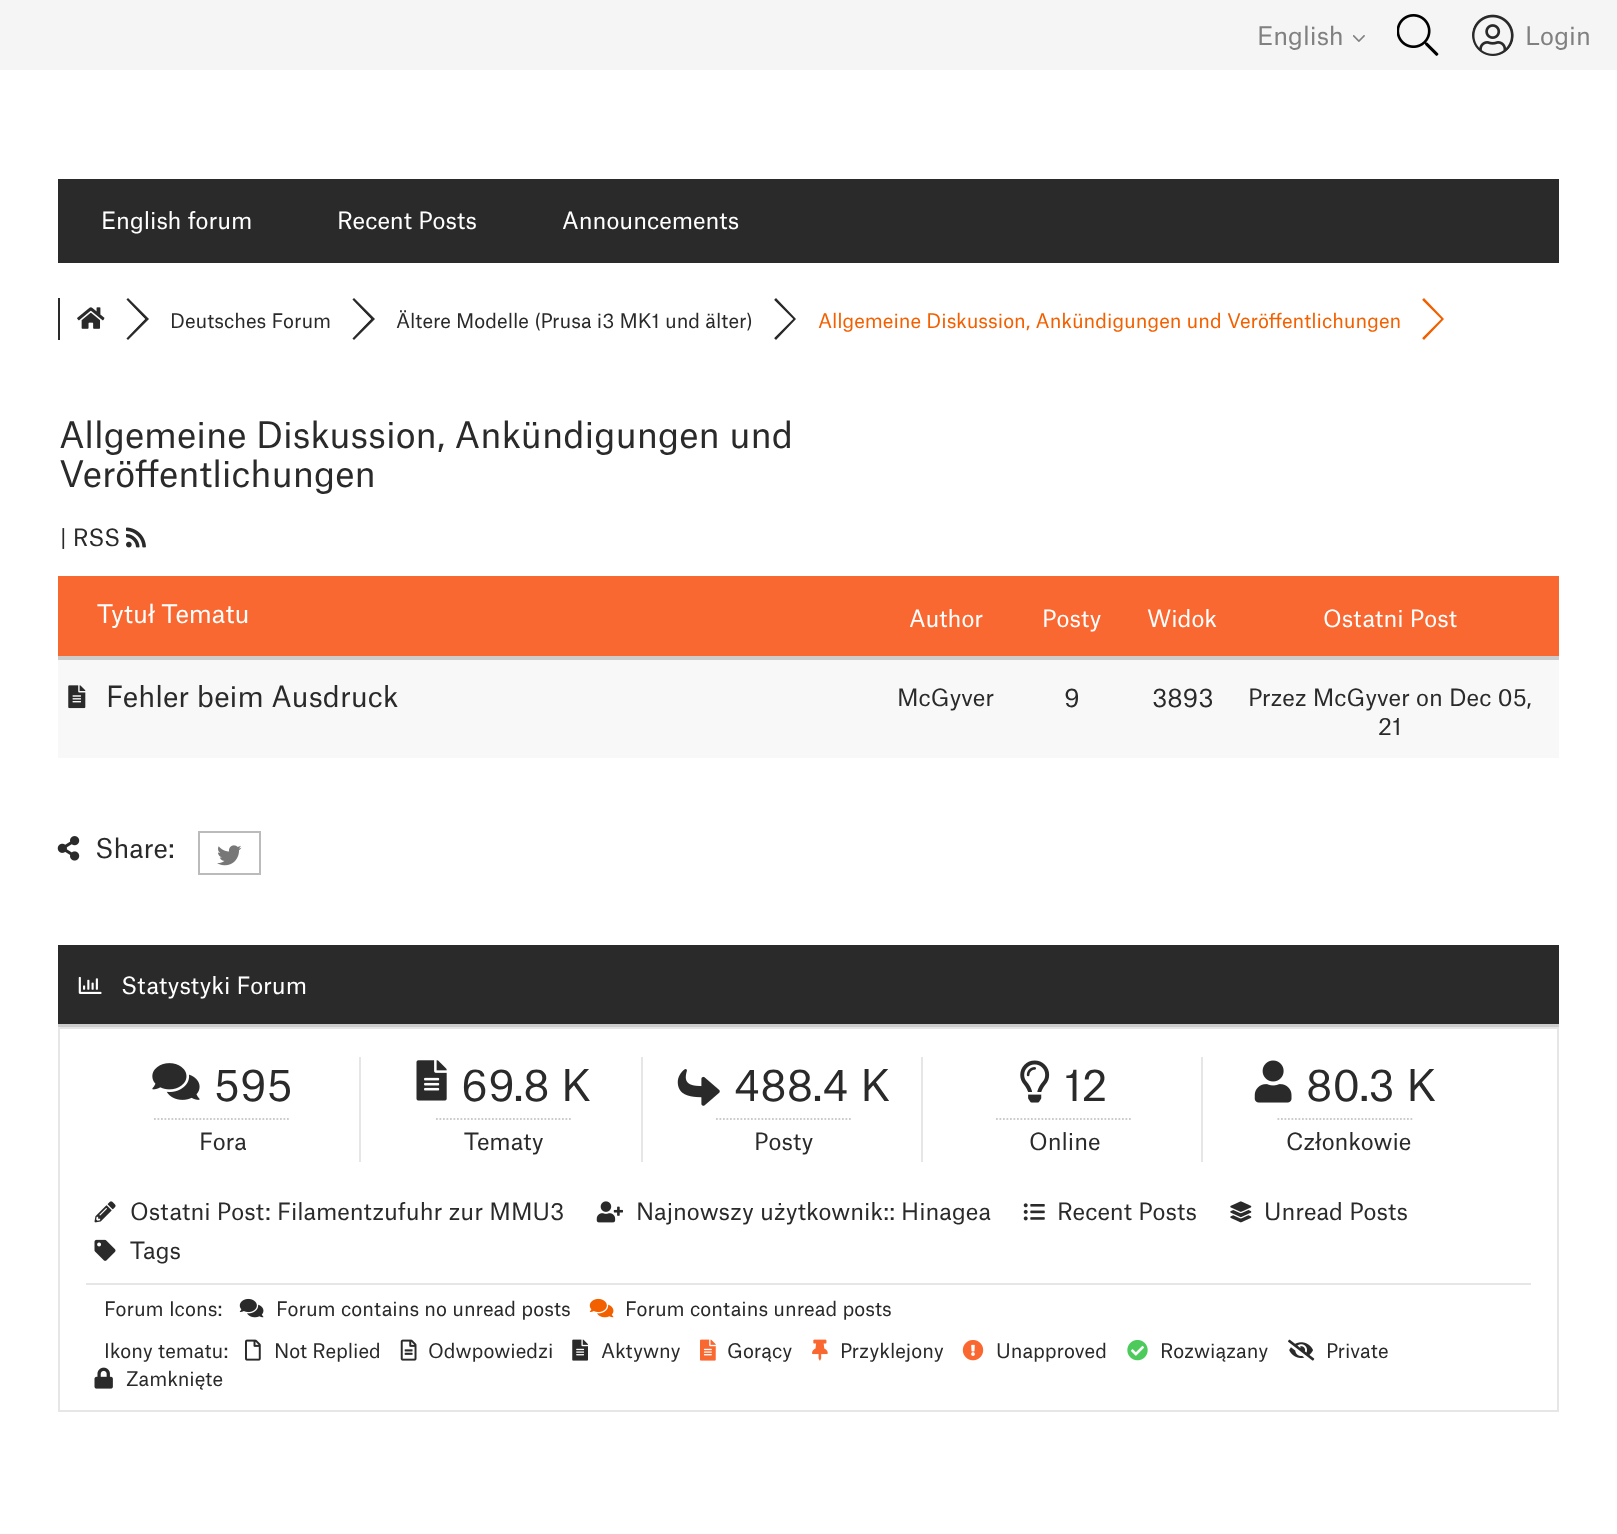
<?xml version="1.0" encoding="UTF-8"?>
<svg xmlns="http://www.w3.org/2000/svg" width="1617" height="1534">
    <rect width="100%" height="100%" fill="#FFFFFF"/>
    <rect x="0" y="0" width="1617" height="70" fill="#F5F5F5"/>
    <text x="1257" y="45" font-family="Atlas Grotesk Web" font-size="24.5" fill="#808080">English</text>
    <image x="1353" y="35" width="12" height="7" href="img_01.png"/>
    <image x="1397" y="14" width="42" height="42" href="img_02.png"/>
    <image x="1472" y="14" width="42" height="42" href="img_03.png"/>
    <text x="1525" y="45" font-family="Atlas Grotesk Web" font-size="24.5" fill="#808080">Login</text>
    <rect x="58" y="179" width="1501" height="84" fill="#2A2A2A"/>
    <text x="101" y="229" font-family="Atlas Grotesk Web" font-size="22.75" fill="#FFFFFF">English forum</text>
    <text x="337" y="229" font-family="Atlas Grotesk Web" font-size="22.75" fill="#FFFFFF">Recent Posts</text>
    <text x="562" y="229" font-family="Atlas Grotesk Web" font-size="22.75" fill="#FFFFFF">Announcements</text>
    <rect x="58" y="298" width="2" height="42" fill="#2A2A2A"/>
    <image x="77" y="307" width="28" height="22" href="img_04.png"/>
    <path d="M 128 298 L 126 300 L 145 319 L 126 338 L 128 340 L 149 319 Z" fill="#2A2A2A"/>
    <path d="M 125 298 L 145 319 L 125 340 L 104 319 Z" fill="#FFFFFF"/>
    <text x="170" y="328" font-family="Atlas Grotesk Web" font-size="19.25" fill="#2A2A2A">Deutsches Forum</text>
    <path d="M 354 298 L 352 300 L 371 319 L 352 338 L 354 340 L 375 319 Z" fill="#2A2A2A"/>
    <path d="M 351 298 L 371 319 L 351 340 L 330 319 Z" fill="#FFFFFF"/>
    <text x="396" y="328" font-family="Atlas Grotesk Web" font-size="19.25" fill="#2A2A2A">Ältere Modelle (Prusa i3 MK1 und älter)</text>
    <path d="M 776 298 L 774 300 L 793 319 L 774 338 L 776 340 L 796 319 Z" fill="#2A2A2A"/>
    <path d="M 772 298 L 793 319 L 772 340 L 751 319 Z" fill="#FFFFFF"/>
    <text x="818" y="328" font-family="Atlas Grotesk Web" font-size="19.25" fill="#F26000">Allgemeine Diskussion, Ankündigungen und Veröffentlichungen</text>
    <path d="M 1424 298 L 1422 300 L 1441 319 L 1422 338 L 1424 340 L 1444 319 Z" fill="#F26000"/>
    <path d="M 1420 298 L 1441 319 L 1420 340 L 1399 319 Z" fill="#FFFFFF"/>
    <text font-family="Atlas Grotesk Web" font-size="35" fill="#2A2A2A">
        <tspan x="59" y="448">Allgemeine Diskussion, Ankündigungen und</tspan>
        <tspan x="59" y="487">Veröffentlichungen</tspan>
    </text>
    <text x="60" y="546" font-family="Atlas Grotesk Web" font-size="22.75" fill="#2A2A2A">| RSS</text>
    <image x="126" y="527" width="20" height="21" href="img_05.png"/>
    <rect x="58" y="576" width="1501" height="80" fill="#FA6831"/>
    <rect x="58" y="656" width="1501" height="4" fill="#CCCCCC"/>
    <text x="97" y="623" font-family="Atlas Grotesk Web" font-size="24.5" fill="#FFFFFF">Tytuł Tematu</text>
    <text x="909" y="627" font-family="Atlas Grotesk Web" font-size="22.75" fill="#FFFFFF">Author</text>
    <text x="1042" y="627" font-family="Atlas Grotesk Web" font-size="22.75" fill="#FFFFFF">Posty</text>
    <text x="1147" y="627" font-family="Atlas Grotesk Web" font-size="22.75" fill="#FFFFFF">Widok</text>
    <text x="1323" y="627" font-family="Atlas Grotesk Web" font-size="22.75" fill="#FFFFFF">Ostatni Post</text>
    <rect x="58" y="660" width="1501" height="98" fill="#F8F8F8"/>
    <image x="68" y="685" width="18" height="24" href="img_06.png"/>
    <text x="106" y="707" font-family="Atlas Grotesk Web" font-size="28" fill="#2A2A2A">Fehler beim Ausdruck</text>
    <text x="897" y="706" font-family="Atlas Grotesk Web" font-size="22.75" fill="#2A2A2A">McGyver</text>
    <text x="1064" y="707" font-family="Atlas Grotesk Web" font-size="24.5" fill="#2A2A2A">9</text>
    <text x="1152" y="707" font-family="Atlas Grotesk Web" font-size="24.5" fill="#2A2A2A">3893</text>
    <text x="1248" y="706" font-family="Atlas Grotesk Web" font-size="22.75" fill="#2A2A2A">Przez McGyver on Dec 05,</text>
    <text x="1378" y="735" font-family="Atlas Grotesk Web" font-size="22.75" fill="#2A2A2A">21</text>
    <image x="57" y="836" width="23" height="25" href="img_07.png"/>
    <text x="95" y="858" font-family="Atlas Grotesk Web" font-size="26" fill="#2A2A2A">Share:</text>
    <rect x="199" y="832" width="61" height="42" fill="none" stroke="#BBBBBB" stroke-width="2"/>
    <image x="217" y="845" width="25" height="21" href="img_08.png"/>
    <rect x="58" y="945" width="1501" height="79" fill="#2A2A2A"/>
    <rect x="58" y="1024" width="1501" height="3" fill="#CCCCCC"/>
    <image x="78" y="976" width="24" height="18" href="img_09.png"/>
    <text x="121" y="994" font-family="Atlas Grotesk Web" font-size="22.75" fill="#FFFFFF">Statystyki Forum</text>
    <rect x="59" y="1028" width="1499" height="383" fill="none" stroke="#E6E6E6" stroke-width="2"/>
    <rect x="359" y="1057" width="2" height="105" fill="#E6E6E6"/>
    <image x="152" y="1063" width="48" height="37" href="img_10.png"/>
    <text x="214" y="1101" font-family="Atlas Grotesk Web" font-size="42" fill="#2A2A2A">595</text>
    <path d="M 154 1119 H 290.5" fill="none" stroke="#CCCCCC" stroke-width="1.8" stroke-dasharray="1.75 1.75"/>
    <text x="199" y="1150" font-family="Atlas Grotesk Web" font-size="22.75" fill="#2A2A2A">Fora</text>
    <rect x="641" y="1057" width="2" height="105" fill="#E6E6E6"/>
    <image x="416" y="1060" width="31" height="41" href="img_11.png"/>
    <text x="461" y="1101" font-family="Atlas Grotesk Web" font-size="42" fill="#2A2A2A">69.8 K</text>
    <path d="M 436 1119 H 572" fill="none" stroke="#CCCCCC" stroke-width="1.8" stroke-dasharray="1.75 1.75"/>
    <text x="464" y="1150" font-family="Atlas Grotesk Web" font-size="22.75" fill="#2A2A2A">Tematy</text>
    <rect x="921" y="1057" width="2" height="105" fill="#E6E6E6"/>
    <image x="677" y="1069" width="43" height="37" href="img_12.png"/>
    <text x="734" y="1101" font-family="Atlas Grotesk Web" font-size="42" fill="#2A2A2A">488.4 K</text>
    <path d="M 716 1119 H 852" fill="none" stroke="#CCCCCC" stroke-width="1.8" stroke-dasharray="1.75 1.75"/>
    <text x="754" y="1150" font-family="Atlas Grotesk Web" font-size="22.75" fill="#2A2A2A">Posty</text>
    <rect x="1201" y="1057" width="2" height="105" fill="#E6E6E6"/>
    <image x="1020" y="1060" width="30" height="43" href="img_13.png"/>
    <text x="1064" y="1101" font-family="Atlas Grotesk Web" font-size="42" fill="#2A2A2A">12</text>
    <path d="M 996 1119 H 1132" fill="none" stroke="#CCCCCC" stroke-width="1.8" stroke-dasharray="1.75 1.75"/>
    <text x="1029" y="1150" font-family="Atlas Grotesk Web" font-size="22.75" fill="#2A2A2A">Online</text>
    <image x="1254" y="1060" width="38" height="43" href="img_14.png"/>
    <text x="1306" y="1101" font-family="Atlas Grotesk Web" font-size="42" fill="#2A2A2A">80.3 K</text>
    <path d="M 1277.5 1119 H 1414" fill="none" stroke="#CCCCCC" stroke-width="1.8" stroke-dasharray="1.75 1.75"/>
    <text x="1286" y="1150" font-family="Atlas Grotesk Web" font-size="22.75" fill="#2A2A2A">Członkowie</text>
    <image x="94" y="1201" width="22" height="22" href="img_15.png"/>
    <text x="130" y="1220" font-family="Atlas Grotesk Web" font-size="22.75" fill="#2A2A2A">Ostatni Post: Filamentzufuhr zur MMU3</text>
    <image x="596" y="1201" width="27" height="22" href="img_16.png"/>
    <text x="636" y="1220" font-family="Atlas Grotesk Web" font-size="22.75" fill="#2A2A2A">Najnowszy użytkownik:: Hinagea</text>
    <image x="1023" y="1203" width="22" height="18" href="img_17.png"/>
    <text x="1057" y="1220" font-family="Atlas Grotesk Web" font-size="22.75" fill="#2A2A2A">Recent Posts</text>
    <image x="1230" y="1201" width="22" height="22" href="img_18.png"/>
    <text x="1264" y="1220" font-family="Atlas Grotesk Web" font-size="22.75" fill="#2A2A2A">Unread Posts</text>
    <image x="94" y="1239" width="22" height="22" href="img_19.png"/>
    <text x="130" y="1259" font-family="Atlas Grotesk Web" font-size="22.75" fill="#2A2A2A">Tags</text>
    <rect x="86" y="1283" width="1445" height="2" fill="#E6E6E6"/>
    <text x="104" y="1316" font-family="Atlas Grotesk Web" font-size="19.25" fill="#2A2A2A">Forum Icons:</text>
    <image x="239" y="1298" width="25" height="20" href="img_20.png"/>
    <text x="276" y="1316" font-family="Atlas Grotesk Web" font-size="19.25" fill="#2A2A2A">Forum contains no unread posts</text>
    <image x="589" y="1298" width="25" height="20" href="img_21.png"/>
    <text x="625" y="1316" font-family="Atlas Grotesk Web" font-size="19.25" fill="#2A2A2A">Forum contains unread posts</text>
    <text x="104" y="1358" font-family="Atlas Grotesk Web" font-size="19.25" fill="#2A2A2A">Ikony tematu:</text>
    <image x="245" y="1339" width="16" height="22" href="img_22.png"/>
    <text x="274" y="1358" font-family="Atlas Grotesk Web" font-size="19.25" fill="#2A2A2A">Not Replied</text>
    <image x="400" y="1339" width="17" height="22" href="img_23.png"/>
    <text x="428" y="1358" font-family="Atlas Grotesk Web" font-size="19.25" fill="#2A2A2A">Odwpowiedzi</text>
    <image x="572" y="1339" width="16" height="22" href="img_24.png"/>
    <text x="601" y="1358" font-family="Atlas Grotesk Web" font-size="19.25" fill="#2A2A2A">Aktywny</text>
    <image x="700" y="1339" width="16" height="22" href="img_25.png"/>
    <text x="727" y="1358" font-family="Atlas Grotesk Web" font-size="19.25" fill="#2A2A2A">Gorący</text>
    <image x="812" y="1339" width="16" height="22" href="img_26.png"/>
    <text x="840" y="1358" font-family="Atlas Grotesk Web" font-size="19.25" fill="#2A2A2A">Przyklejony</text>
    <image x="962" y="1340" width="22" height="21" href="img_27.png"/>
    <text x="996" y="1358" font-family="Atlas Grotesk Web" font-size="19.25" fill="#2A2A2A">Unapproved</text>
    <image x="1127" y="1340" width="21" height="21" href="img_28.png"/>
    <text x="1160" y="1358" font-family="Atlas Grotesk Web" font-size="19.25" fill="#2A2A2A">Rozwiązany</text>
    <image x="1288" y="1339" width="27" height="22" href="img_29.png"/>
    <text x="1326" y="1358" font-family="Atlas Grotesk Web" font-size="19.25" fill="#2A2A2A">Private</text>
    <image x="94" y="1367" width="19" height="22" href="img_30.png"/>
    <text x="126" y="1386" font-family="Atlas Grotesk Web" font-size="19.25" fill="#2A2A2A">Zamknięte</text>
</svg>
